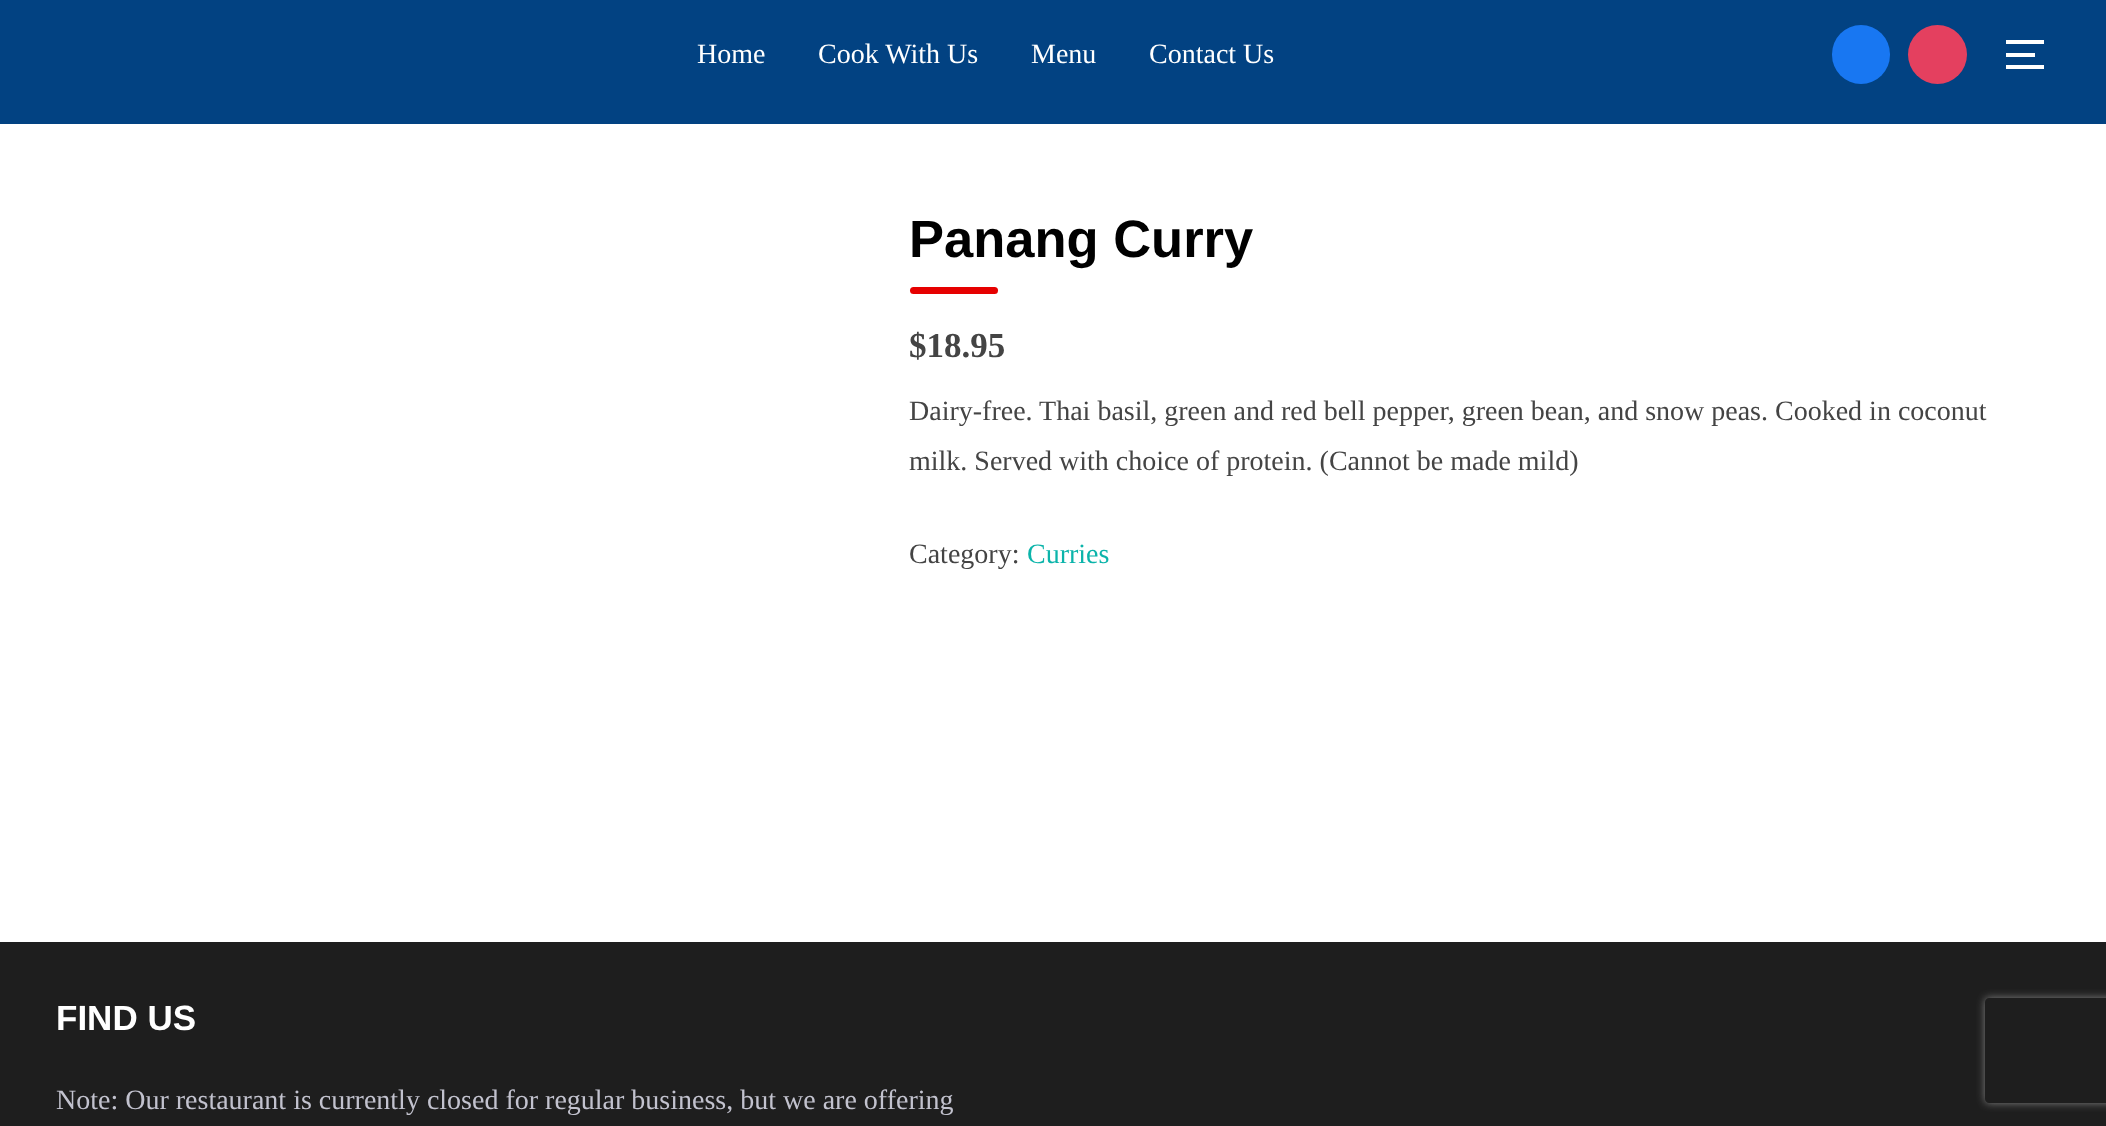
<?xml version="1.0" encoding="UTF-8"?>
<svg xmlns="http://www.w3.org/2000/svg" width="2106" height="1126">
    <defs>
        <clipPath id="clip1"><path d="M 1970 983 H 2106 V 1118 H 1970 Z M 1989 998 H 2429 C 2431 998 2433 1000 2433 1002 V 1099 C 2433 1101 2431 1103 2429 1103 H 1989 C 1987 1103 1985 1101 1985 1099 V 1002 C 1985 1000 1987 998 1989 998 Z" clip-rule="evenodd"/></clipPath>
        <filter id="blur1" x="-50%" y="-200%" width="200%" height="500%"><feGaussianBlur stdDeviation="4.5"/></filter>
    </defs>
    <rect width="100%" height="100%" fill="#FFFFFF"/>
    <rect x="0" y="0" width="2106" height="124" fill="#024282"/>
    <text x="697" y="63" font-family="Liberation Serif" font-size="28" fill="#FFFFFF">Home</text>
    <text x="818" y="63" font-family="Liberation Serif" font-size="28" fill="#FFFFFF">Cook With Us</text>
    <text x="1031" y="63" font-family="Liberation Serif" font-size="28" fill="#FFFFFF">Menu</text>
    <text x="1149" y="63" font-family="Liberation Serif" font-size="28" fill="#FFFFFF">Contact Us</text>
    <rect x="1832" y="25" width="58" height="59" rx="29" fill="#1877F2"/>
    <circle cx="1937.5" cy="54.5" r="29.5" fill="#E4405F"/>
    <rect x="2006" y="40" width="38" height="4" fill="#FFFFFF"/>
    <rect x="2006" y="53" width="29" height="4" fill="#FFFFFF"/>
    <rect x="2006" y="65" width="38" height="4" fill="#FFFFFF"/>
    <text x="909" y="257" font-family="Liberation Sans" font-size="52.5" font-weight="700" fill="#000000">Panang Curry</text>
    <rect x="910" y="287" width="88" height="7" rx="3.5" fill="#E60000"/>
    <text x="909" y="357" font-family="Liberation Serif" font-size="35" font-weight="700" fill="#444444">$18.95</text>
    <text font-family="Liberation Serif" font-size="28" fill="#444444">
        <tspan x="909" y="420">Dairy-free. Thai basil, green and red bell pepper, green bean, and snow peas. Cooked in coconut</tspan>
        <tspan x="909" y="470">milk. Served with choice of protein. (Cannot be made mild)</tspan>
    </text>
    <text x="909" y="563" font-family="Liberation Serif" font-size="28" fill="#444444">Category:</text>
    <text x="1027" y="563" font-family="Liberation Serif" font-size="28" fill="#0BB4AA">Curries</text>
    <rect x="0" y="942" width="2106" height="184" fill="#1E1E1E"/>
    <text x="56" y="1030" font-family="Liberation Sans" font-size="35" font-weight="700" fill="#FFFFFF">FIND US</text>
    <text x="56" y="1109" font-family="Liberation Serif" font-size="28" fill="#C2C2CE">Note: Our restaurant is currently closed for regular business, but we are offering</text>
    <g clip-path="url(#clip1)">
        <rect x="1985" y="998" width="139" height="105" rx="4" fill="#808080" filter="url(#blur1)"/>
    </g>
</svg>
